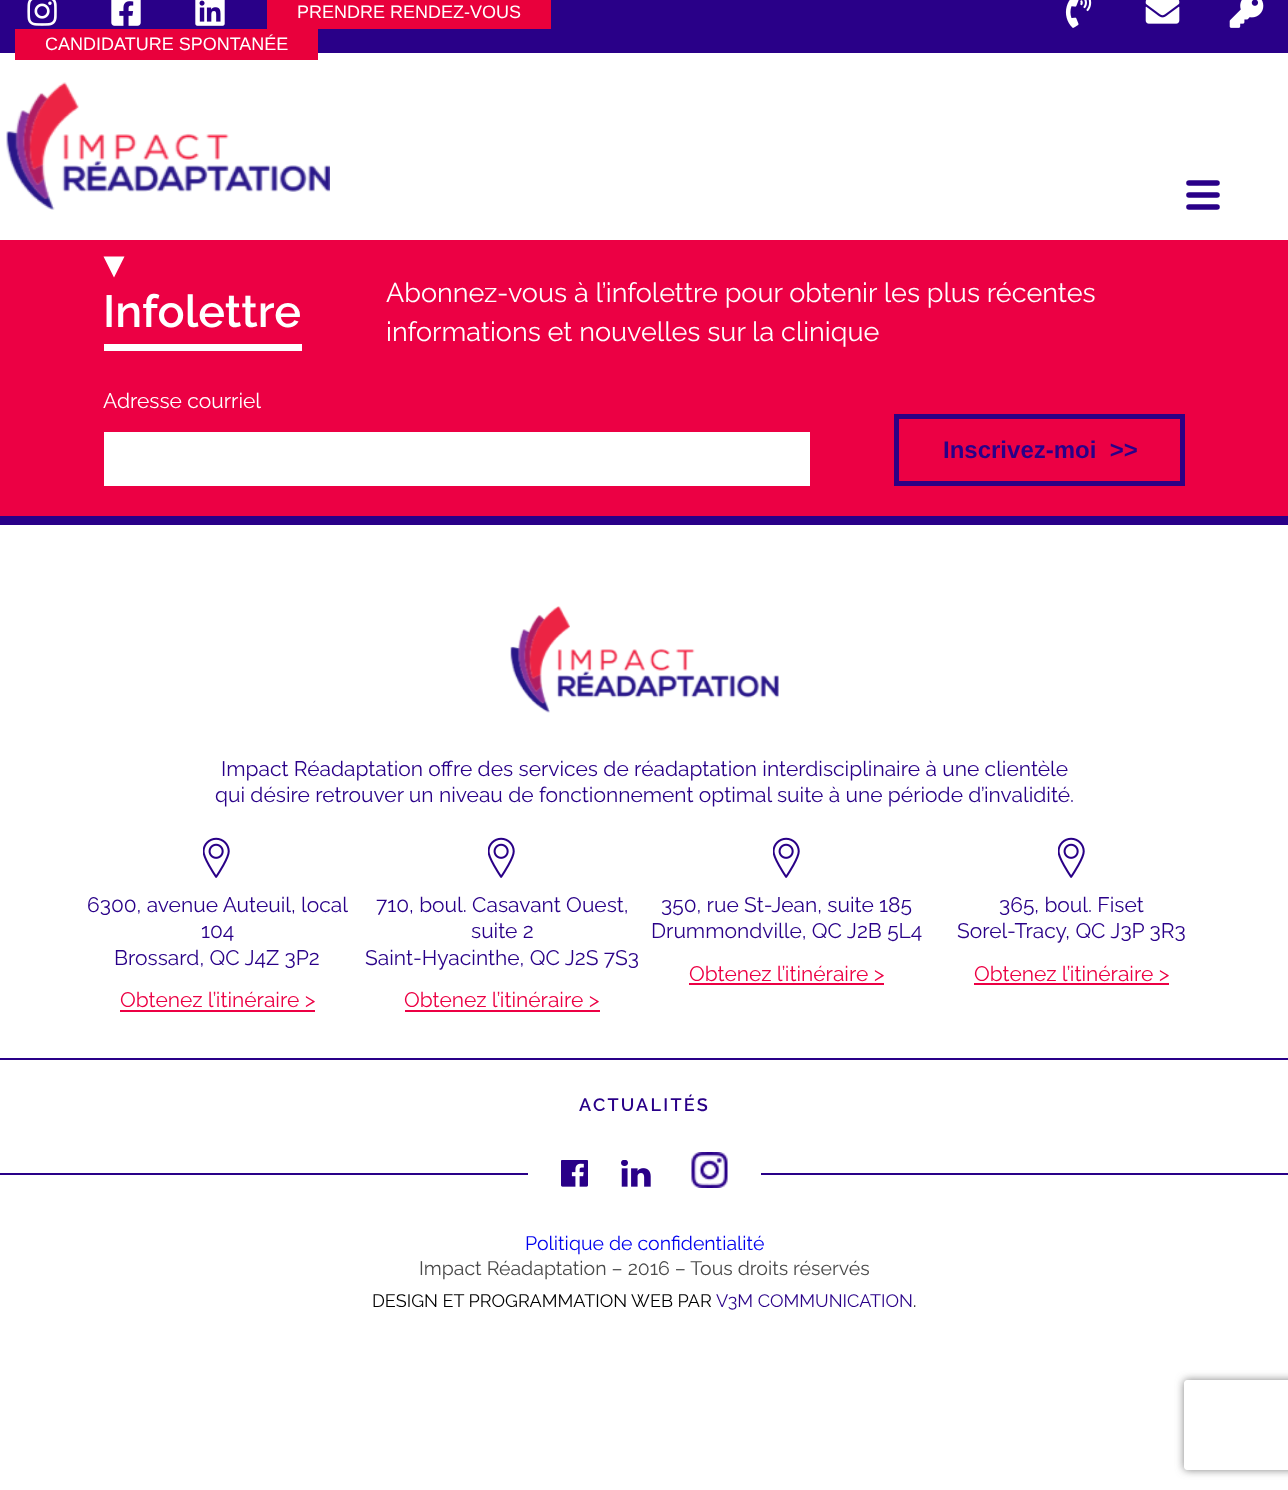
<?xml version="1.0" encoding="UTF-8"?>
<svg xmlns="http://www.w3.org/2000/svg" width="1288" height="1490">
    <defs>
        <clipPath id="clip1"><path d="M 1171 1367 H 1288 V 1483 H 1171 Z M 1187 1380 H 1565 C 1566.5 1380 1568 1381.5 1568 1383 V 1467 C 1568 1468.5 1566.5 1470 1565 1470 H 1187 C 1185.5 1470 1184 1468.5 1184 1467 V 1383 C 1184 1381.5 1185.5 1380 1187 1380 Z" clip-rule="evenodd"/></clipPath>
        <filter id="blur1" x="-50%" y="-200%" width="200%" height="500%"><feGaussianBlur stdDeviation="4"/></filter>
    </defs>
    <rect width="100%" height="100%" fill="#FFFFFF"/>
    <rect x="0" y="0" width="1288" height="53" fill="#290088"/>
    <image x="27" y="0" width="30" height="26" href="img_01.png"/>
    <image x="111" y="0" width="30" height="26" href="img_02.png"/>
    <image x="195" y="0" width="30" height="26" href="img_03.png"/>
    <rect x="267" y="0" width="284" height="29" fill="#E9003C"/>
    <text x="297" y="18" font-family="Liberation Sans" font-size="18" fill="#FFFFFF">PRENDRE RENDEZ-VOUS</text>
    <rect x="15" y="29" width="303" height="31" fill="#E9003C"/>
    <text x="45" y="50" font-family="Liberation Sans" font-size="18" fill="#FFFFFF">CANDIDATURE SPONTANÉE</text>
    <image x="1065" y="0" width="27" height="28" href="img_04.png"/>
    <image x="1145" y="0" width="35" height="24" href="img_05.png"/>
    <image x="1229" y="0" width="35" height="28" href="img_06.png"/>
    <image x="6" y="82" width="324" height="128" href="img_07.png"/>
    <path d="M 1189 183 H 1217 M 1189 195 H 1217 M 1189 207 H 1217" fill="none" stroke="#290088" stroke-width="5.6" stroke-linecap="round"/>
    <rect x="0" y="240" width="1288" height="276" fill="#EC0044"/>
    <rect x="0" y="516" width="1288" height="9" fill="#290088"/>
    <path d="M 103.5 256.5 H 124.5 L 114 277.5 Z" fill="#FFFFFF"/>
    <rect x="104" y="344" width="198" height="7" fill="#FFFFFF"/>
    <text x="103" y="327" font-family="Raleway" font-size="45" font-weight="600" fill="#FFFFFF">Infolettre</text>
    <text font-family="Raleway" font-size="27" fill="#FFFFFF">
        <tspan x="386" y="302">Abonnez-vous à l’infolettre pour obtenir les plus récentes</tspan>
        <tspan x="386" y="341">informations et nouvelles sur la clinique</tspan>
    </text>
    <text x="103" y="408" font-family="Raleway" font-size="21" fill="#FFFFFF">Adresse courriel</text>
    <rect x="104" y="432" width="706" height="54" fill="#FFFFFF"/>
    <rect x="896.5" y="416.5" width="286" height="67" fill="none" stroke="#2C0084" stroke-width="5"/>
    <text x="943" y="458" font-family="Liberation Sans" font-size="24" font-weight="700" fill="#290088" xml:space="preserve">Inscrivez-moi  &gt;&gt;</text>
    <rect x="0" y="1058" width="1288" height="2" fill="#290088"/>
    <image x="510" y="606" width="269" height="107" href="img_08.png"/>
    <text x="221" y="776" font-family="Raleway" font-size="21" fill="#290088">Impact Réadaptation offre des services de réadaptation interdisciplinaire à une clientèle</text>
    <text x="215" y="802" font-family="Raleway" font-size="21" fill="#290088">qui désire retrouver un niveau de fonctionnement optimal suite à une période d’invalidité.</text>
    <image x="203" y="837" width="27" height="41" href="img_09.png"/>
    <text x="87" y="912" font-family="Raleway" font-size="21" fill="#290088">6300, avenue Auteuil, local</text>
    <text x="201" y="938" font-family="Raleway" font-size="21" fill="#290088">104</text>
    <text x="114" y="965" font-family="Raleway" font-size="21" fill="#290088">Brossard, QC J4Z 3P2</text>
    <text x="120" y="1007" font-family="Raleway" font-size="21" fill="#EC0044">Obtenez l’itinéraire &gt;</text>
    <rect x="120" y="1010" width="195" height="2" fill="#EC0044"/>
    <image x="488" y="837" width="27" height="41" href="img_09.png"/>
    <text x="376" y="912" font-family="Raleway" font-size="21" fill="#290088">710, boul. Casavant Ouest,</text>
    <text x="471" y="938" font-family="Raleway" font-size="21" fill="#290088">suite 2</text>
    <text x="365" y="965" font-family="Raleway" font-size="21" fill="#290088">Saint-Hyacinthe, QC J2S 7S3</text>
    <text x="404" y="1007" font-family="Raleway" font-size="21" fill="#EC0044">Obtenez l’itinéraire &gt;</text>
    <rect x="405" y="1010" width="195" height="2" fill="#EC0044"/>
    <image x="773" y="837" width="27" height="41" href="img_09.png"/>
    <text x="661" y="912" font-family="Raleway" font-size="21" fill="#290088">350, rue St-Jean, suite 185</text>
    <text x="651" y="938" font-family="Raleway" font-size="21" fill="#290088">Drummondville, QC J2B 5L4</text>
    <text x="689" y="981" font-family="Raleway" font-size="21" fill="#EC0044">Obtenez l’itinéraire &gt;</text>
    <rect x="689" y="983" width="195" height="2" fill="#EC0044"/>
    <image x="1058" y="837" width="27" height="41" href="img_09.png"/>
    <text x="999" y="912" font-family="Raleway" font-size="21" fill="#290088">365, boul. Fiset</text>
    <text x="957" y="938" font-family="Raleway" font-size="21" fill="#290088">Sorel-Tracy, QC J3P 3R3</text>
    <text x="974" y="981" font-family="Raleway" font-size="21" fill="#EC0044">Obtenez l’itinéraire &gt;</text>
    <rect x="974" y="983" width="195" height="2" fill="#EC0044"/>
    <text x="579" y="1111" font-family="Raleway" font-size="18" font-weight="600" letter-spacing="2.25" fill="#290088">ACTUALITÉS</text>
    <rect x="0" y="1173" width="528" height="2" fill="#290088"/>
    <image x="561" y="1160" width="27" height="27" href="img_10.png"/>
    <image x="621" y="1160" width="30" height="27" href="img_11.png"/>
    <image x="691" y="1152" width="37" height="36" href="img_12.png"/>
    <rect x="761" y="1173" width="527" height="2" fill="#290088"/>
    <text x="525" y="1250" font-family="Raleway" font-size="19.5" fill="#0000EE">Politique de confidentialité</text>
    <text x="419" y="1275" font-family="Raleway" font-size="19.5" fill="#4A4A4A">Impact Réadaptation – 2016 – Tous droits réservés</text>
    <text x="372" y="1307" font-family="Raleway" font-size="18" fill="#000000">DESIGN ET PROGRAMMATION WEB PAR</text>
    <text x="716" y="1307" font-family="Raleway" font-size="18" fill="#290088">V3M COMMUNICATION</text>
    <text x="913" y="1307" font-family="Raleway" font-size="18" fill="#000000">.</text>
    <g clip-path="url(#clip1)">
        <rect x="1184" y="1380" width="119" height="90" rx="3" fill="#808080" filter="url(#blur1)"/>
    </g>
</svg>
